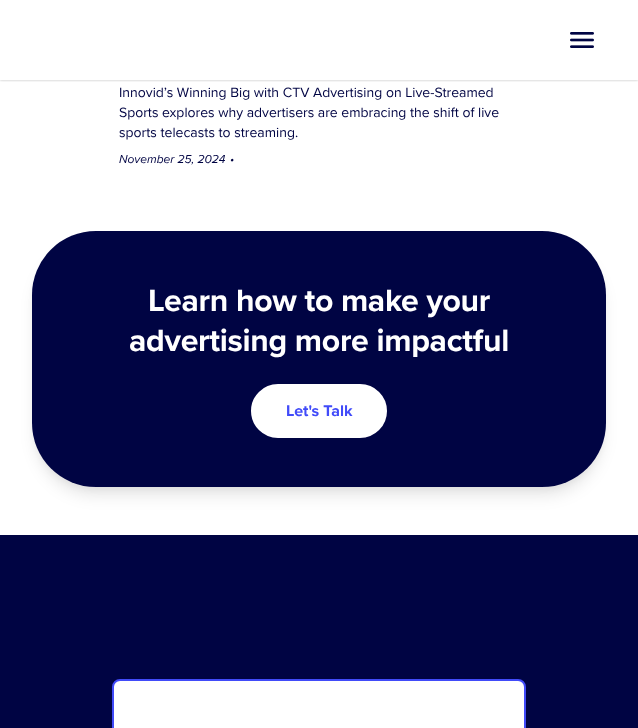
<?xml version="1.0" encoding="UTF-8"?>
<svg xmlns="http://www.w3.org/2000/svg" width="638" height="728">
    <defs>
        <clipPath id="clip1"><rect x="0" y="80" width="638" height="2"/></clipPath>
        <filter id="blur1" x="-50%" y="-200%" width="200%" height="500%"><feGaussianBlur stdDeviation="1.5"/></filter>
        <clipPath id="clip2"><rect x="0" y="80" width="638" height="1"/></clipPath>
        <filter id="blur2" x="-50%" y="-200%" width="200%" height="500%"><feGaussianBlur stdDeviation="1"/></filter>
        <filter id="blur3" x="-50%" y="-200%" width="200%" height="500%"><feGaussianBlur stdDeviation="8"/></filter>
        <filter id="blur4" x="-50%" y="-200%" width="200%" height="500%"><feGaussianBlur stdDeviation="3"/></filter>
    </defs>
    <rect width="100%" height="100%" fill="#FFFFFF"/>
    <g clip-path="url(#clip1)">
        <rect x="0" y="1" width="638" height="80" fill="#000000" fill-opacity="0.1" filter="url(#blur1)"/>
    </g>
    <g clip-path="url(#clip2)">
        <rect x="0" y="1" width="638" height="80" fill="#000000" fill-opacity="0.06" filter="url(#blur2)"/>
    </g>
    <image x="570" y="32" width="24" height="16" href="img_01.png"/>
    <text font-family="Proxima Nova" font-size="14" fill="#000443">
        <tspan x="119" y="97">Innovid’s Winning Big with CTV Advertising on Live-Streamed</tspan>
        <tspan x="119" y="117">Sports explores why advertisers are embracing the shift of live</tspan>
        <tspan x="119" y="137">sports telecasts to streaming.</tspan>
    </text>
    <text x="119" y="163" font-family="Proxima Nova" font-size="12" font-style="italic" fill="#000443">November 25, 2024</text>
    <text x="230" y="163" font-family="Proxima Nova" font-size="12" font-style="italic" fill="#000443">•</text>
    <rect x="36" y="247" width="566" height="248" rx="60" fill="#000000" fill-opacity="0.1" filter="url(#blur3)"/>
    <rect x="34" y="237" width="570" height="252" rx="62" fill="#000000" fill-opacity="0.05" filter="url(#blur4)"/>
    <rect x="32" y="231" width="574" height="256" rx="64" fill="#000443"/>
    <text x="148" y="311" font-family="Proxima Nova" font-size="32" font-weight="700" letter-spacing="-0.3" fill="#FFFFFF">Learn how to make your</text>
    <text x="129" y="351" font-family="Proxima Nova" font-size="32" font-weight="700" letter-spacing="-0.3" fill="#FFFFFF">advertising more impactful</text>
    <rect x="252" y="385" width="134" height="52" rx="26" fill="#FFFFFF" stroke="#FFFFFF" stroke-width="2"/>
    <text x="286" y="416" font-family="Proxima Nova" font-size="16" font-weight="700" fill="#414BF9">Let's Talk</text>
    <rect x="0" y="535" width="638" height="193" fill="#000443"/>
    <rect x="113" y="680" width="412" height="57" rx="7" fill="#FFFFFF" stroke="#414BF9" stroke-width="2"/>
</svg>
